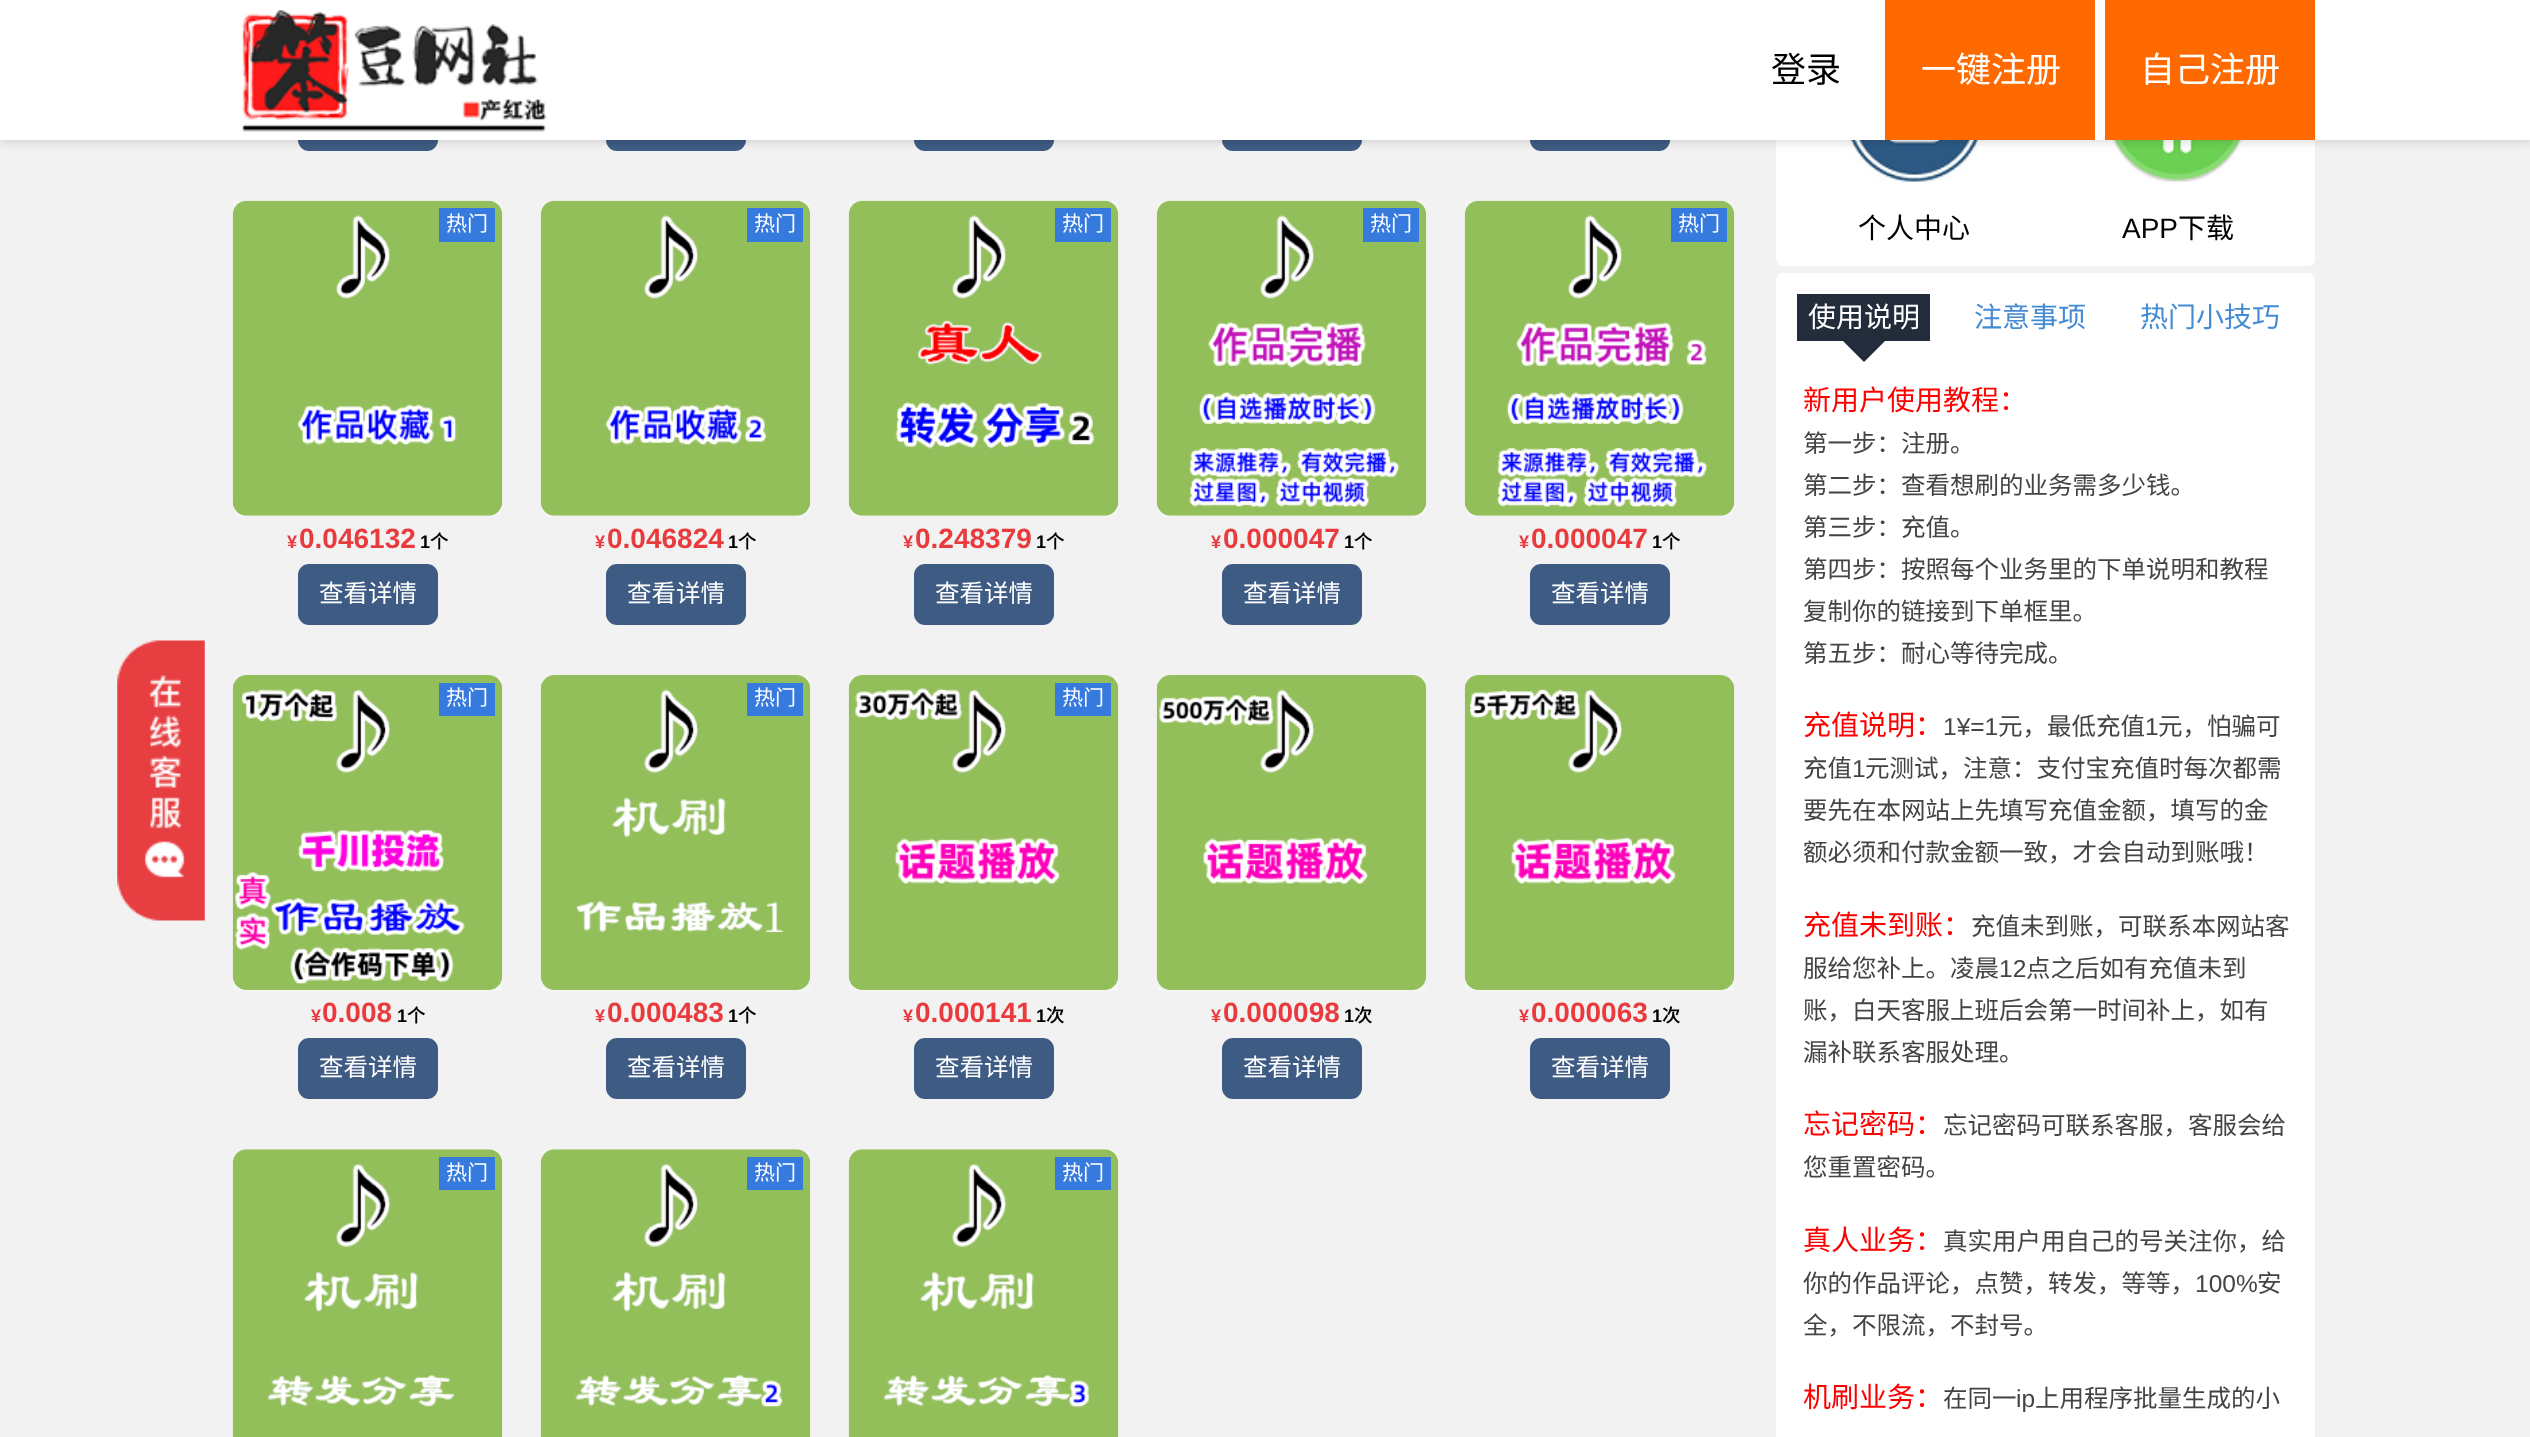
<?xml version="1.0" encoding="UTF-8"?>
<svg xmlns="http://www.w3.org/2000/svg" width="2530" height="1437">
    <defs>
        <filter id="blur1" x="-50%" y="-200%" width="200%" height="500%"><feGaussianBlur stdDeviation="3.5"/></filter>
    </defs>
    <rect width="100%" height="100%" fill="#F2F2F2"/>
    <rect x="298" y="89" width="140" height="62" rx="11" fill="#3E5B83"/>
    <rect x="606" y="89" width="140" height="62" rx="11" fill="#3E5B83"/>
    <rect x="914" y="89" width="140" height="62" rx="11" fill="#3E5B83"/>
    <rect x="1222" y="89" width="140" height="62" rx="11" fill="#3E5B83"/>
    <rect x="1530" y="89" width="140" height="62" rx="11" fill="#3E5B83"/>
    <rect x="1776" y="-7" width="539" height="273" rx="7" fill="#FFFFFF"/>
    <image x="1844" y="140" width="141" height="42" href="img_16.png"/>
    <image x="2107" y="140" width="140" height="42" href="img_17.png"/>
    <rect x="0" y="4" width="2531" height="140" fill="#000000" fill-opacity="0.1" filter="url(#blur1)"/>
    <rect x="0" y="0" width="2530" height="140" fill="#FFFFFF"/>
    <image x="241" y="10" width="306" height="122" href="img_01.png"/>
    <text x="1771" y="82" font-family="Noto Sans CJK SC" font-size="35" fill="#000000">登录</text>
    <rect x="1885" y="0" width="210" height="140" fill="#FF6A00"/>
    <text x="1921" y="82" font-family="Noto Sans CJK SC" font-size="35" fill="#FFFFFF">一键注册</text>
    <rect x="2105" y="0" width="210" height="140" fill="#FF6A00"/>
    <text x="2140" y="82" font-family="Noto Sans CJK SC" font-size="35" fill="#FFFFFF">自己注册</text>
    <image x="117" y="640" width="88" height="281" href="img_02.png"/>
    <rect x="233" y="201" width="269" height="315" fill="#F5F5F5"/>
    <image x="232" y="200" width="271" height="316" href="img_03.png"/>
    <rect x="439" y="208" width="56" height="34" fill="#367ADE"/>
    <text x="446" y="231" font-family="Noto Sans CJK SC" font-size="21" fill="#FFFFFF">热门</text>
    <text x="287" y="548" font-family="Liberation Sans" font-size="18" font-weight="700" fill="#E93B3D">¥</text>
    <text x="299" y="548" font-family="Liberation Sans" font-size="28" font-weight="700" fill="#E93B3D">0.046132</text>
    <text x="420" y="548" font-family="Liberation Sans" font-size="18" font-weight="700" fill="#000000">1</text>
    <text x="430" y="548" font-family="Noto Sans CJK SC" font-size="18" font-weight="700" fill="#000000">个</text>
    <rect x="298" y="564" width="140" height="61" rx="11" fill="#3E5B83"/>
    <text x="319" y="602" font-family="Noto Sans CJK SC" font-size="24.5" fill="#FFFFFF">查看详情</text>
    <rect x="541" y="201" width="269" height="315" fill="#F5F5F5"/>
    <image x="540" y="200" width="271" height="316" href="img_04.png"/>
    <rect x="747" y="208" width="56" height="34" fill="#367ADE"/>
    <text x="754" y="231" font-family="Noto Sans CJK SC" font-size="21" fill="#FFFFFF">热门</text>
    <text x="595" y="548" font-family="Liberation Sans" font-size="18" font-weight="700" fill="#E93B3D">¥</text>
    <text x="607" y="548" font-family="Liberation Sans" font-size="28" font-weight="700" fill="#E93B3D">0.046824</text>
    <text x="728" y="548" font-family="Liberation Sans" font-size="18" font-weight="700" fill="#000000">1</text>
    <text x="738" y="548" font-family="Noto Sans CJK SC" font-size="18" font-weight="700" fill="#000000">个</text>
    <rect x="606" y="564" width="140" height="61" rx="11" fill="#3E5B83"/>
    <text x="627" y="602" font-family="Noto Sans CJK SC" font-size="24.5" fill="#FFFFFF">查看详情</text>
    <rect x="849" y="201" width="269" height="315" fill="#F5F5F5"/>
    <image x="848" y="200" width="271" height="316" href="img_05.png"/>
    <rect x="1055" y="208" width="56" height="34" fill="#367ADE"/>
    <text x="1062" y="231" font-family="Noto Sans CJK SC" font-size="21" fill="#FFFFFF">热门</text>
    <text x="903" y="548" font-family="Liberation Sans" font-size="18" font-weight="700" fill="#E93B3D">¥</text>
    <text x="915" y="548" font-family="Liberation Sans" font-size="28" font-weight="700" fill="#E93B3D">0.248379</text>
    <text x="1036" y="548" font-family="Liberation Sans" font-size="18" font-weight="700" fill="#000000">1</text>
    <text x="1046" y="548" font-family="Noto Sans CJK SC" font-size="18" font-weight="700" fill="#000000">个</text>
    <rect x="914" y="564" width="140" height="61" rx="11" fill="#3E5B83"/>
    <text x="935" y="602" font-family="Noto Sans CJK SC" font-size="24.5" fill="#FFFFFF">查看详情</text>
    <rect x="1157" y="201" width="269" height="315" fill="#F5F5F5"/>
    <image x="1156" y="200" width="271" height="316" href="img_06.png"/>
    <rect x="1363" y="208" width="56" height="34" fill="#367ADE"/>
    <text x="1370" y="231" font-family="Noto Sans CJK SC" font-size="21" fill="#FFFFFF">热门</text>
    <text x="1211" y="548" font-family="Liberation Sans" font-size="18" font-weight="700" fill="#E93B3D">¥</text>
    <text x="1223" y="548" font-family="Liberation Sans" font-size="28" font-weight="700" fill="#E93B3D">0.000047</text>
    <text x="1344" y="548" font-family="Liberation Sans" font-size="18" font-weight="700" fill="#000000">1</text>
    <text x="1354" y="548" font-family="Noto Sans CJK SC" font-size="18" font-weight="700" fill="#000000">个</text>
    <rect x="1222" y="564" width="140" height="61" rx="11" fill="#3E5B83"/>
    <text x="1243" y="602" font-family="Noto Sans CJK SC" font-size="24.5" fill="#FFFFFF">查看详情</text>
    <rect x="1465" y="201" width="269" height="315" fill="#F5F5F5"/>
    <image x="1464" y="200" width="271" height="316" href="img_07.png"/>
    <rect x="1671" y="208" width="56" height="34" fill="#367ADE"/>
    <text x="1678" y="231" font-family="Noto Sans CJK SC" font-size="21" fill="#FFFFFF">热门</text>
    <text x="1519" y="548" font-family="Liberation Sans" font-size="18" font-weight="700" fill="#E93B3D">¥</text>
    <text x="1531" y="548" font-family="Liberation Sans" font-size="28" font-weight="700" fill="#E93B3D">0.000047</text>
    <text x="1652" y="548" font-family="Liberation Sans" font-size="18" font-weight="700" fill="#000000">1</text>
    <text x="1662" y="548" font-family="Noto Sans CJK SC" font-size="18" font-weight="700" fill="#000000">个</text>
    <rect x="1530" y="564" width="140" height="61" rx="11" fill="#3E5B83"/>
    <text x="1551" y="602" font-family="Noto Sans CJK SC" font-size="24.5" fill="#FFFFFF">查看详情</text>
    <rect x="233" y="676" width="269" height="315" fill="#F5F5F5"/>
    <image x="232" y="675" width="271" height="315" href="img_08.png"/>
    <rect x="439" y="683" width="56" height="33" fill="#367ADE"/>
    <text x="446" y="705" font-family="Noto Sans CJK SC" font-size="21" fill="#FFFFFF">热门</text>
    <text x="311" y="1022" font-family="Liberation Sans" font-size="18" font-weight="700" fill="#E93B3D">¥</text>
    <text x="322" y="1022" font-family="Liberation Sans" font-size="28" font-weight="700" fill="#E93B3D">0.008</text>
    <text x="397" y="1022" font-family="Liberation Sans" font-size="18" font-weight="700" fill="#000000">1</text>
    <text x="407" y="1022" font-family="Noto Sans CJK SC" font-size="18" font-weight="700" fill="#000000">个</text>
    <rect x="298" y="1038" width="140" height="61" rx="11" fill="#3E5B83"/>
    <text x="319" y="1076" font-family="Noto Sans CJK SC" font-size="24.5" fill="#FFFFFF">查看详情</text>
    <rect x="541" y="676" width="269" height="315" fill="#F5F5F5"/>
    <image x="540" y="675" width="271" height="315" href="img_09.png"/>
    <rect x="747" y="683" width="56" height="33" fill="#367ADE"/>
    <text x="754" y="705" font-family="Noto Sans CJK SC" font-size="21" fill="#FFFFFF">热门</text>
    <text x="595" y="1022" font-family="Liberation Sans" font-size="18" font-weight="700" fill="#E93B3D">¥</text>
    <text x="607" y="1022" font-family="Liberation Sans" font-size="28" font-weight="700" fill="#E93B3D">0.000483</text>
    <text x="728" y="1022" font-family="Liberation Sans" font-size="18" font-weight="700" fill="#000000">1</text>
    <text x="738" y="1022" font-family="Noto Sans CJK SC" font-size="18" font-weight="700" fill="#000000">个</text>
    <rect x="606" y="1038" width="140" height="61" rx="11" fill="#3E5B83"/>
    <text x="627" y="1076" font-family="Noto Sans CJK SC" font-size="24.5" fill="#FFFFFF">查看详情</text>
    <rect x="849" y="676" width="269" height="315" fill="#F5F5F5"/>
    <image x="848" y="675" width="271" height="315" href="img_10.png"/>
    <rect x="1055" y="683" width="56" height="33" fill="#367ADE"/>
    <text x="1062" y="705" font-family="Noto Sans CJK SC" font-size="21" fill="#FFFFFF">热门</text>
    <text x="903" y="1022" font-family="Liberation Sans" font-size="18" font-weight="700" fill="#E93B3D">¥</text>
    <text x="915" y="1022" font-family="Liberation Sans" font-size="28" font-weight="700" fill="#E93B3D">0.000141</text>
    <text x="1036" y="1022" font-family="Liberation Sans" font-size="18" font-weight="700" fill="#000000">1</text>
    <text x="1046" y="1022" font-family="Noto Sans CJK SC" font-size="18" font-weight="700" fill="#000000">次</text>
    <rect x="914" y="1038" width="140" height="61" rx="11" fill="#3E5B83"/>
    <text x="935" y="1076" font-family="Noto Sans CJK SC" font-size="24.5" fill="#FFFFFF">查看详情</text>
    <rect x="1157" y="676" width="269" height="315" fill="#F5F5F5"/>
    <image x="1156" y="675" width="271" height="315" href="img_11.png"/>
    <text x="1211" y="1022" font-family="Liberation Sans" font-size="18" font-weight="700" fill="#E93B3D">¥</text>
    <text x="1223" y="1022" font-family="Liberation Sans" font-size="28" font-weight="700" fill="#E93B3D">0.000098</text>
    <text x="1344" y="1022" font-family="Liberation Sans" font-size="18" font-weight="700" fill="#000000">1</text>
    <text x="1354" y="1022" font-family="Noto Sans CJK SC" font-size="18" font-weight="700" fill="#000000">次</text>
    <rect x="1222" y="1038" width="140" height="61" rx="11" fill="#3E5B83"/>
    <text x="1243" y="1076" font-family="Noto Sans CJK SC" font-size="24.5" fill="#FFFFFF">查看详情</text>
    <rect x="1465" y="676" width="269" height="315" fill="#F5F5F5"/>
    <image x="1464" y="675" width="271" height="315" href="img_12.png"/>
    <text x="1519" y="1022" font-family="Liberation Sans" font-size="18" font-weight="700" fill="#E93B3D">¥</text>
    <text x="1531" y="1022" font-family="Liberation Sans" font-size="28" font-weight="700" fill="#E93B3D">0.000063</text>
    <text x="1652" y="1022" font-family="Liberation Sans" font-size="18" font-weight="700" fill="#000000">1</text>
    <text x="1662" y="1022" font-family="Noto Sans CJK SC" font-size="18" font-weight="700" fill="#000000">次</text>
    <rect x="1530" y="1038" width="140" height="61" rx="11" fill="#3E5B83"/>
    <text x="1551" y="1076" font-family="Noto Sans CJK SC" font-size="24.5" fill="#FFFFFF">查看详情</text>
    <rect x="233" y="1150" width="269" height="11" fill="#F5F5F5"/>
    <image x="232" y="1149" width="271" height="288" href="img_13.png"/>
    <rect x="439" y="1157" width="56" height="33" fill="#367ADE"/>
    <text x="446" y="1180" font-family="Noto Sans CJK SC" font-size="21" fill="#FFFFFF">热门</text>
    <rect x="541" y="1150" width="269" height="11" fill="#F5F5F5"/>
    <image x="540" y="1149" width="271" height="288" href="img_14.png"/>
    <rect x="747" y="1157" width="56" height="33" fill="#367ADE"/>
    <text x="754" y="1180" font-family="Noto Sans CJK SC" font-size="21" fill="#FFFFFF">热门</text>
    <rect x="849" y="1150" width="269" height="11" fill="#F5F5F5"/>
    <image x="848" y="1149" width="271" height="288" href="img_15.png"/>
    <rect x="1055" y="1157" width="56" height="33" fill="#367ADE"/>
    <text x="1062" y="1180" font-family="Noto Sans CJK SC" font-size="21" fill="#FFFFFF">热门</text>
    <text x="1858" y="238" font-family="Noto Sans CJK SC" font-size="28" fill="#000000">个人中心</text>
    <text x="2122" y="238" font-family="Liberation Sans" font-size="28" fill="#000000">APP</text>
    <text x="2178" y="238" font-family="Noto Sans CJK SC" font-size="28" fill="#000000">下载</text>
    <rect x="1776" y="273" width="539" height="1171" rx="7" fill="#FFFFFF"/>
    <rect x="1797" y="294" width="133" height="47" fill="#232C3B"/>
    <text x="1808" y="327" font-family="Noto Sans CJK SC" font-size="28" fill="#FFFFFF">使用说明</text>
    <path d="M 1843 341 H 1885 L 1864 362 Z" fill="#232C3B"/>
    <text x="1974" y="327" font-family="Noto Sans CJK SC" font-size="28" fill="#448BD4">注意事项</text>
    <text x="2140" y="327" font-family="Noto Sans CJK SC" font-size="28" fill="#448BD4">热门小技巧</text>
    <text x="1803" y="410" font-family="Noto Sans CJK SC" font-size="28" fill="#FF0000">新用户使用教程：</text>
    <text font-family="Noto Sans CJK SC" font-size="24.5" fill="#444444">
        <tspan x="1803" y="452">第一步：注册。</tspan>
        <tspan x="1803" y="494">第二步：查看想刷的业务需多少钱。</tspan>
        <tspan x="1803" y="536">第三步：充值。</tspan>
        <tspan x="1803" y="578">第四步：按照每个业务里的下单说明和教程</tspan>
        <tspan x="1803" y="620">复制你的链接到下单框里。</tspan>
        <tspan x="1803" y="662">第五步：耐心等待完成。</tspan>
    </text>
    <text x="1803" y="735" font-family="Noto Sans CJK SC" font-size="28" fill="#FF0000">充值说明：</text>
    <text x="1943" y="735" font-family="Liberation Sans" font-size="24.5" fill="#444444">1¥=1</text>
    <text x="1998" y="735" font-family="Noto Sans CJK SC" font-size="24.5" fill="#444444">元，最低充值</text>
    <text x="2145" y="735" font-family="Liberation Sans" font-size="24.5" fill="#444444">1</text>
    <text x="2158" y="735" font-family="Noto Sans CJK SC" font-size="24.5" fill="#444444">元，怕骗可</text>
    <text x="1803" y="777" font-family="Noto Sans CJK SC" font-size="24.5" fill="#444444">充值</text>
    <text x="1852" y="777" font-family="Liberation Sans" font-size="24.5" fill="#444444">1</text>
    <text x="1865" y="777" font-family="Noto Sans CJK SC" font-size="24.5" fill="#444444">元测试，注意：支付宝充值时每次都需</text>
    <text font-family="Noto Sans CJK SC" font-size="24.5" fill="#444444">
        <tspan x="1803" y="819">要先在本网站上先填写充值金额，填写的金</tspan>
        <tspan x="1803" y="861">额必须和付款金额一致，才会自动到账哦！</tspan>
    </text>
    <text x="1803" y="935" font-family="Noto Sans CJK SC" font-size="28" fill="#FF0000">充值未到账：</text>
    <text x="1971" y="935" font-family="Noto Sans CJK SC" font-size="24.5" fill="#444444">充值未到账，可联系本网站客</text>
    <text x="1803" y="977" font-family="Noto Sans CJK SC" font-size="24.5" fill="#444444">服给您补上。凌晨</text>
    <text x="1999" y="977" font-family="Liberation Sans" font-size="24.5" fill="#444444">12</text>
    <text x="2026" y="977" font-family="Noto Sans CJK SC" font-size="24.5" fill="#444444">点之后如有充值未到</text>
    <text font-family="Noto Sans CJK SC" font-size="24.5" fill="#444444">
        <tspan x="1803" y="1019">账，白天客服上班后会第一时间补上，如有</tspan>
        <tspan x="1803" y="1061">漏补联系客服处理。</tspan>
    </text>
    <text x="1803" y="1134" font-family="Noto Sans CJK SC" font-size="28" fill="#FF0000">忘记密码：</text>
    <text x="1943" y="1134" font-family="Noto Sans CJK SC" font-size="24.5" fill="#444444">忘记密码可联系客服，客服会给</text>
    <text x="1803" y="1176" font-family="Noto Sans CJK SC" font-size="24.5" fill="#444444">您重置密码。</text>
    <text x="1803" y="1250" font-family="Noto Sans CJK SC" font-size="28" fill="#FF0000">真人业务：</text>
    <text x="1943" y="1250" font-family="Noto Sans CJK SC" font-size="24.5" fill="#444444">真实用户用自己的号关注你，给</text>
    <text x="1803" y="1292" font-family="Noto Sans CJK SC" font-size="24.5" fill="#444444">你的作品评论，点赞，转发，等等，</text>
    <text x="2195" y="1292" font-family="Liberation Sans" font-size="24.5" fill="#444444">100%</text>
    <text x="2257" y="1292" font-family="Noto Sans CJK SC" font-size="24.5" fill="#444444">安</text>
    <text x="1803" y="1334" font-family="Noto Sans CJK SC" font-size="24.5" fill="#444444">全，不限流，不封号。</text>
    <text x="1803" y="1407" font-family="Noto Sans CJK SC" font-size="28" fill="#FF0000">机刷业务：</text>
    <text x="1943" y="1407" font-family="Noto Sans CJK SC" font-size="24.5" fill="#444444">在同一</text>
    <text x="2016" y="1407" font-family="Liberation Sans" font-size="24.5" fill="#444444">ip</text>
    <text x="2035" y="1407" font-family="Noto Sans CJK SC" font-size="24.5" fill="#444444">上用程序批量生成的小</text>
</svg>
